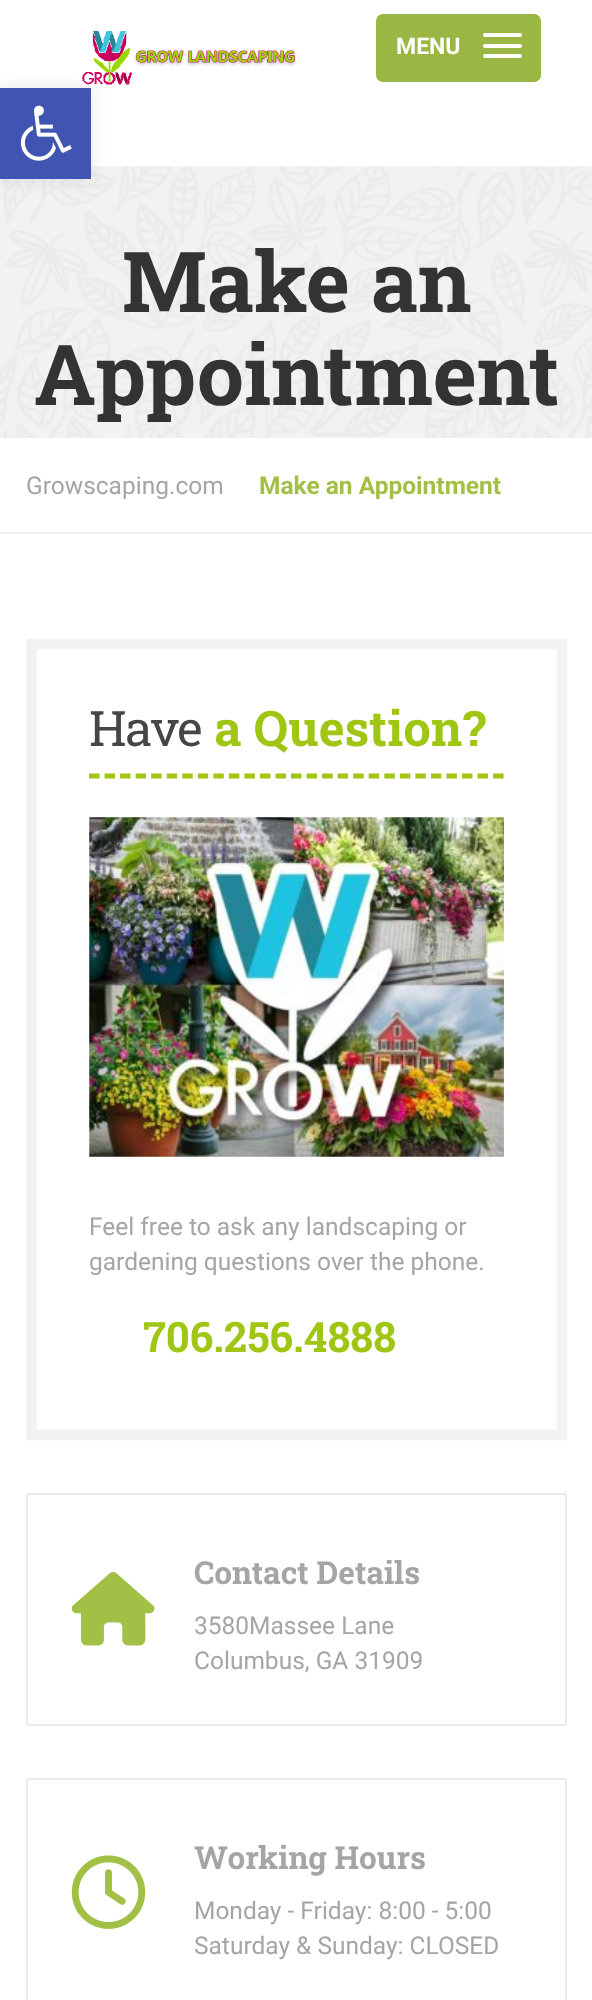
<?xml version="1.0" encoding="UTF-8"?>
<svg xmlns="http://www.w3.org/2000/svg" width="592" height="2000">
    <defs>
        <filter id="blur1" x="-50%" y="-200%" width="200%" height="500%"><feGaussianBlur stdDeviation="9"/></filter>
    </defs>
    <rect width="100%" height="100%" fill="#FFFFFF"/>
    <image x="82" y="31" width="215" height="54" href="img_01.png"/>
    <rect x="376" y="14" width="165" height="68" rx="7" fill="#9AB643"/>
    <text x="396" y="54" font-family="Roboto" font-size="23" font-weight="700" fill="#FFFFFF">MENU</text>
    <rect x="483" y="33" width="39" height="4" rx="2" fill="#FFFFFF"/>
    <rect x="483" y="44" width="39" height="4" rx="2" fill="#FFFFFF"/>
    <rect x="483" y="54" width="39" height="4" rx="2" fill="#FFFFFF"/>
    <image x="0" y="166" width="592" height="272" href="img_02.png"/>
    <text x="122" y="312" font-family="Roboto Slab" font-size="84" font-weight="700" fill="#333333">Make an</text>
    <text x="34" y="405" font-family="Roboto Slab" font-size="84" font-weight="700" fill="#333333">Appointment</text>
    <rect x="0" y="532" width="592" height="2" fill="#F0F0F0"/>
    <text x="26" y="494" font-family="Roboto" font-size="24.5" fill="#A5A5A5">Growscaping.com</text>
    <text x="259" y="494" font-family="Roboto" font-size="24.5" font-weight="700" fill="#A2C046">Make an Appointment</text>
    <path d="M 31.5 644 H 562 V 1435 H 31.5 Z" fill="none" stroke="#F2F2F2" stroke-width="10.5"/>
    <path d="M 89 776 H 504" fill="none" stroke="#9FC612" stroke-width="5.2" stroke-dasharray="10.5 5.04"/>
    <text x="89" y="746" font-family="Roboto Slab" font-size="49" letter-spacing="-1.5" fill="#464646">Have</text>
    <text x="214" y="746" font-family="Roboto Slab" font-size="49" font-weight="700" fill="#9FC612">a Question?</text>
    <image x="89" y="817" width="415" height="340" href="img_03.png"/>
    <text font-family="Roboto" font-size="24.5" fill="#A5A5A5">
        <tspan x="89" y="1235">Feel free to ask any landscaping or</tspan>
        <tspan x="89" y="1270">gardening questions over the phone.</tspan>
    </text>
    <text x="143" y="1352" font-family="Roboto Slab" font-size="42" font-weight="700" fill="#9FC612">706.256.4888</text>
    <rect x="27" y="1494" width="539" height="231" rx="1" fill="none" stroke="#EBEBEB" stroke-width="2"/>
    <image x="71" y="1571" width="84" height="75" href="img_04.png"/>
    <text x="194" y="1584" font-family="Roboto Slab" font-size="31.5" font-weight="700" fill="#A5A5A5">Contact Details</text>
    <text font-family="Roboto" font-size="24.5" fill="#A5A5A5">
        <tspan x="194" y="1634">3580Massee Lane</tspan>
        <tspan x="194" y="1669">Columbus, GA 31909</tspan>
    </text>
    <rect x="27" y="1779" width="539" height="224" rx="1" fill="none" stroke="#EBEBEB" stroke-width="2"/>
    <image x="71" y="1855" width="75" height="74" href="img_05.png"/>
    <text x="194" y="1869" font-family="Roboto Slab" font-size="31.5" font-weight="700" fill="#A5A5A5">Working Hours</text>
    <text font-family="Roboto" font-size="24.5" fill="#A5A5A5">
        <tspan x="194" y="1919">Monday - Friday: 8:00 - 5:00</tspan>
        <tspan x="194" y="1954">Saturday &amp; Sunday: CLOSED</tspan>
    </text>
    <rect x="0" y="88" width="91" height="91" fill="#000000" fill-opacity="0.1" filter="url(#blur1)"/>
    <rect x="0" y="88" width="91" height="91" fill="#4054B2"/>
    <image x="20" y="105" width="52" height="56" href="img_06.png"/>
</svg>
